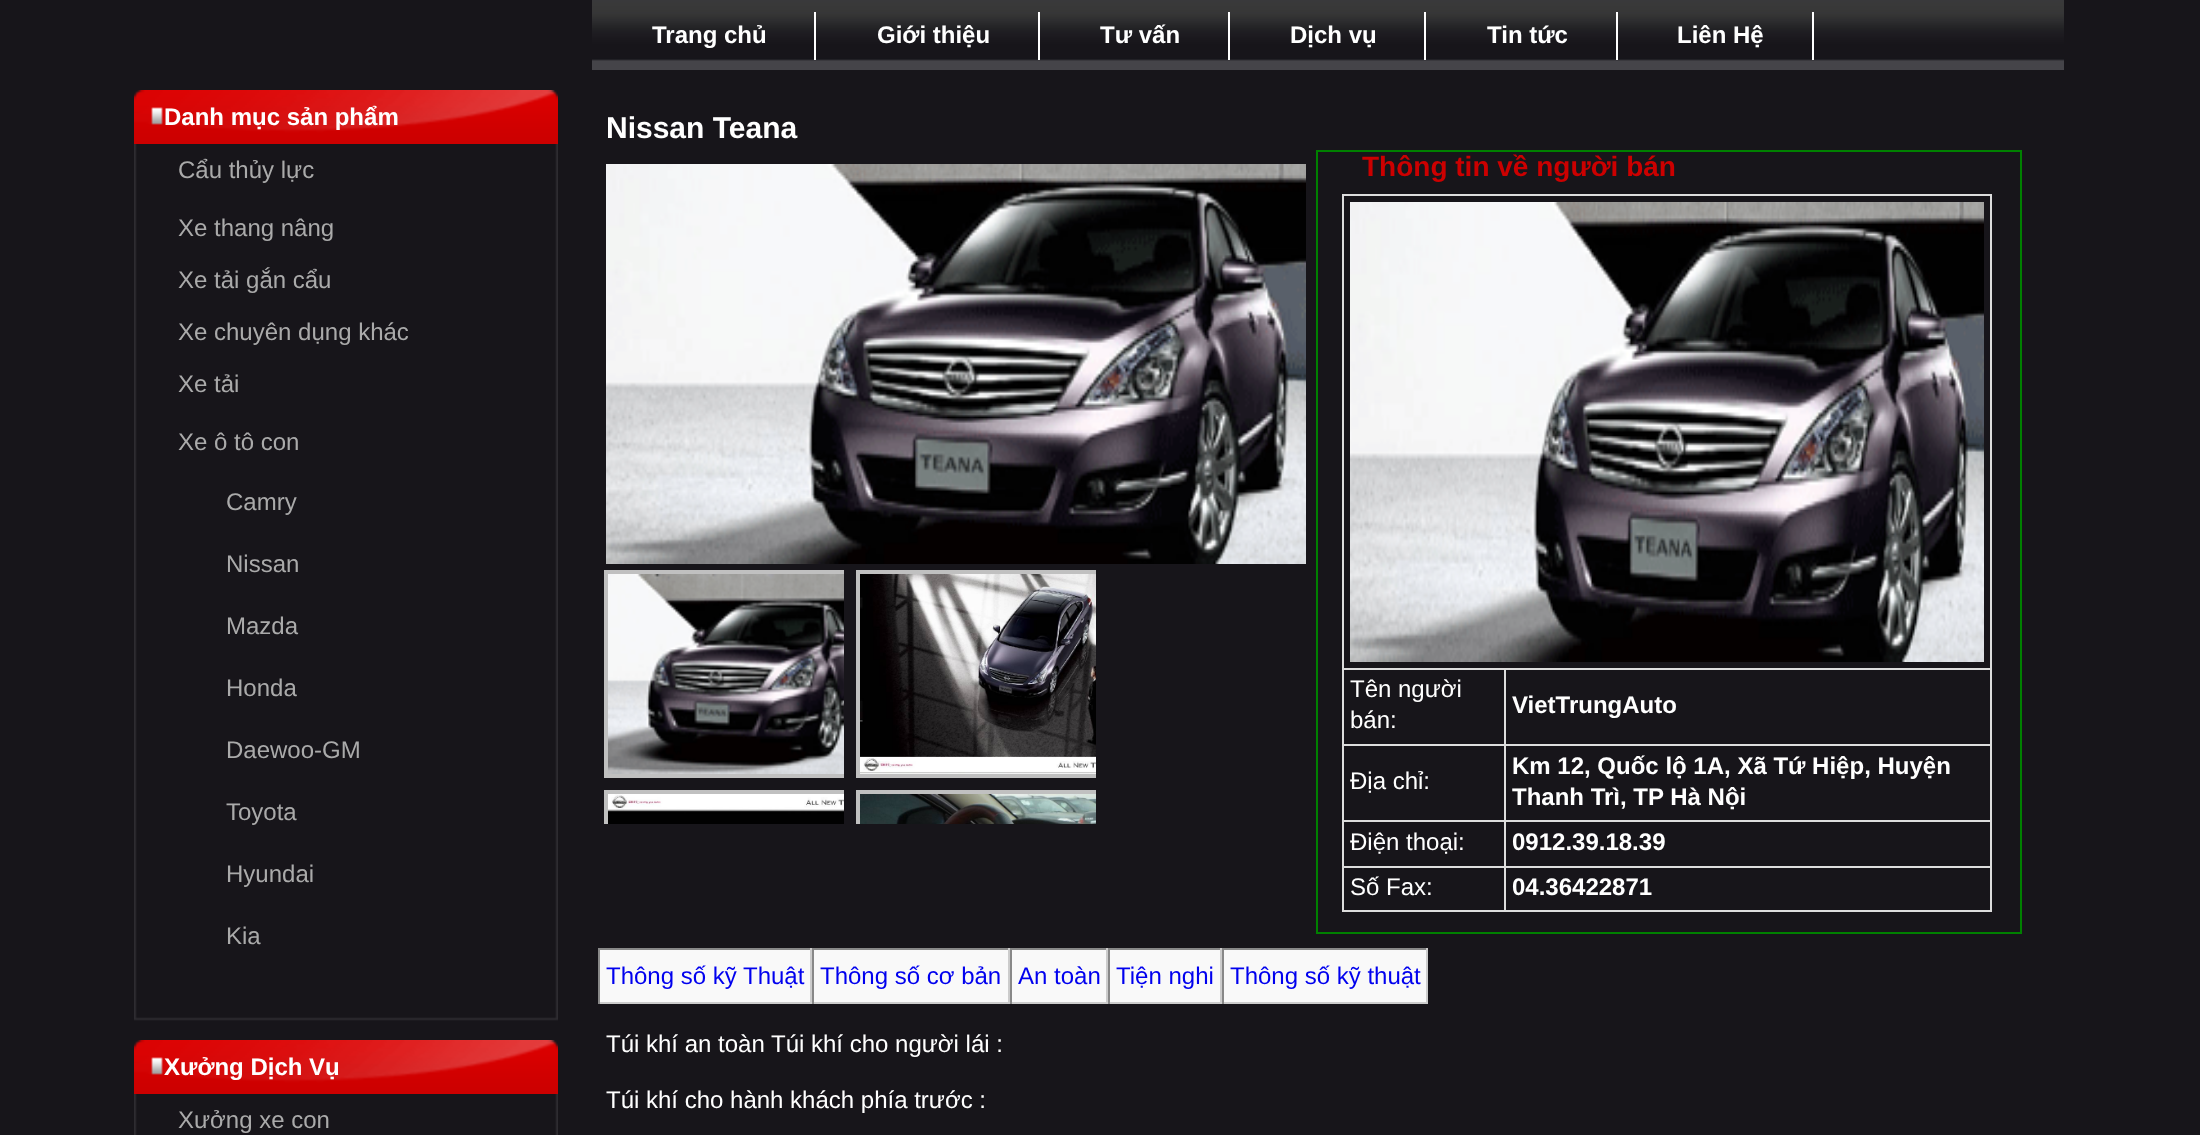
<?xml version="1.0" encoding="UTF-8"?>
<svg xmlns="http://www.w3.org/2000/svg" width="2200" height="1135">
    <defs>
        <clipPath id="clip1"><rect x="604" y="570" width="240" height="208"/></clipPath>
        <clipPath id="clip2"><rect x="856" y="570" width="240" height="208"/></clipPath>
        <clipPath id="clip3"><rect x="604" y="790" width="240" height="34"/></clipPath>
        <clipPath id="clip4"><rect x="856" y="790" width="240" height="34"/></clipPath>
    </defs>
    <rect width="100%" height="100%" fill="#17151A"/>
    <image x="592" y="0" width="1472" height="70" href="img_01.png"/>
    <rect x="814" y="12" width="2" height="48" fill="#FFFFFF"/>
    <text x="652" y="43" font-family="Liberation Sans" font-size="24" font-weight="700" fill="#FFFFFF">Trang chủ</text>
    <rect x="1038" y="12" width="2" height="48" fill="#FFFFFF"/>
    <text x="877" y="43" font-family="Liberation Sans" font-size="24" font-weight="700" fill="#FFFFFF">Giới thiệu</text>
    <rect x="1228" y="12" width="2" height="48" fill="#FFFFFF"/>
    <text x="1100" y="43" font-family="Liberation Sans" font-size="24" font-weight="700" fill="#FFFFFF">Tư vấn</text>
    <rect x="1424" y="12" width="2" height="48" fill="#FFFFFF"/>
    <text x="1290" y="43" font-family="Liberation Sans" font-size="24" font-weight="700" fill="#FFFFFF">Dịch vụ</text>
    <rect x="1616" y="12" width="2" height="48" fill="#FFFFFF"/>
    <text x="1487" y="43" font-family="Liberation Sans" font-size="24" font-weight="700" fill="#FFFFFF">Tin tức</text>
    <rect x="1812" y="12" width="2" height="48" fill="#FFFFFF"/>
    <text x="1677" y="43" font-family="Liberation Sans" font-size="24" font-weight="700" fill="#FFFFFF">Liên Hệ</text>
    <image x="134" y="90" width="424" height="54" href="img_02.png"/>
    <text x="164" y="125" font-family="Liberation Sans" font-size="24" font-weight="700" fill="#FFFFFF">Danh mục sản phẩm</text>
    <image x="134" y="144" width="424" height="826" href="img_03.png"/>
    <text x="178" y="178" font-family="Liberation Sans" font-size="24" fill="#AAAAAA">Cẩu thủy lực</text>
    <text x="178" y="236" font-family="Liberation Sans" font-size="24" fill="#AAAAAA">Xe thang nâng</text>
    <text x="178" y="288" font-family="Liberation Sans" font-size="24" fill="#AAAAAA">Xe tải gắn cẩu</text>
    <text x="178" y="340" font-family="Liberation Sans" font-size="24" fill="#AAAAAA">Xe chuyên dụng khác</text>
    <text x="178" y="392" font-family="Liberation Sans" font-size="24" fill="#AAAAAA">Xe tải</text>
    <text x="178" y="450" font-family="Liberation Sans" font-size="24" fill="#AAAAAA">Xe ô tô con</text>
    <text x="226" y="510" font-family="Liberation Sans" font-size="24" fill="#AAAAAA">Camry</text>
    <text x="226" y="572" font-family="Liberation Sans" font-size="24" fill="#AAAAAA">Nissan</text>
    <text x="226" y="634" font-family="Liberation Sans" font-size="24" fill="#AAAAAA">Mazda</text>
    <text x="226" y="696" font-family="Liberation Sans" font-size="24" fill="#AAAAAA">Honda</text>
    <text x="226" y="758" font-family="Liberation Sans" font-size="24" fill="#AAAAAA">Daewoo-GM</text>
    <text x="226" y="820" font-family="Liberation Sans" font-size="24" fill="#AAAAAA">Toyota</text>
    <text x="226" y="882" font-family="Liberation Sans" font-size="24" fill="#AAAAAA">Hyundai</text>
    <text x="226" y="944" font-family="Liberation Sans" font-size="24" fill="#AAAAAA">Kia</text>
    <image x="134" y="970" width="424" height="51" href="img_04.png"/>
    <image x="134" y="1040" width="424" height="54" href="img_02.png"/>
    <text x="164" y="1075" font-family="Liberation Sans" font-size="24" font-weight="700" fill="#FFFFFF">Xưởng Dịch Vụ</text>
    <image x="134" y="1094" width="424" height="41" href="img_05.png"/>
    <text x="178" y="1128" font-family="Liberation Sans" font-size="24" fill="#AAAAAA">Xưởng xe con</text>
    <text x="606" y="138" font-family="Liberation Sans" font-size="30" font-weight="700" fill="#FFFFFF">Nissan Teana</text>
    <image x="606" y="164" width="700" height="400" href="img_06.png"/>
    <g clip-path="url(#clip1)">
        <rect x="606" y="572" width="270" height="204" fill="none" stroke="#C0C0C0" stroke-width="4"/>
    </g>
    <image x="608" y="574" width="236" height="200" href="img_07.png"/>
    <g clip-path="url(#clip2)">
        <rect x="858" y="572" width="270" height="204" fill="none" stroke="#C0C0C0" stroke-width="4"/>
    </g>
    <image x="860" y="574" width="236" height="200" href="img_08.png"/>
    <rect x="600" y="950" width="210" height="52" fill="#F9F9F9"/>
    <rect x="598" y="948" width="830" height="2" fill="#888888"/>
    <rect x="810" y="948" width="2" height="56" fill="#CCCCCC"/>
    <text x="606" y="984" font-family="Liberation Sans" font-size="24" fill="#0000EE">Thông số kỹ Thuật</text>
    <rect x="814" y="950" width="194" height="52" fill="#F9F9F9"/>
    <rect x="1008" y="948" width="2" height="56" fill="#CCCCCC"/>
    <rect x="812" y="1002" width="198" height="2" fill="#CCCCCC"/>
    <rect x="812" y="948" width="2" height="56" fill="#888888"/>
    <text x="820" y="984" font-family="Liberation Sans" font-size="24" fill="#0000EE">Thông số cơ bản</text>
    <g clip-path="url(#clip3)">
        <rect x="606" y="792" width="270" height="204" fill="none" stroke="#C0C0C0" stroke-width="4"/>
    </g>
    <image x="608" y="794" width="236" height="30" href="img_09.png"/>
    <rect x="1012" y="950" width="94" height="52" fill="#F9F9F9"/>
    <rect x="1106" y="948" width="2" height="56" fill="#CCCCCC"/>
    <rect x="1010" y="1002" width="98" height="2" fill="#CCCCCC"/>
    <rect x="1010" y="948" width="2" height="56" fill="#888888"/>
    <rect x="1110" y="950" width="110" height="52" fill="#F9F9F9"/>
    <rect x="1220" y="948" width="2" height="56" fill="#CCCCCC"/>
    <rect x="1108" y="1002" width="114" height="2" fill="#CCCCCC"/>
    <rect x="1108" y="948" width="2" height="56" fill="#888888"/>
    <text x="1116" y="984" font-family="Liberation Sans" font-size="24" fill="#0000EE">Tiện nghi</text>
    <g clip-path="url(#clip4)">
        <rect x="858" y="792" width="270" height="204" fill="none" stroke="#C0C0C0" stroke-width="4"/>
    </g>
    <image x="860" y="794" width="236" height="30" href="img_10.png"/>
    <rect x="1317" y="151" width="704" height="782" fill="none" stroke="#008000" stroke-width="2"/>
    <text x="1362" y="176" font-family="Liberation Sans" font-size="28" font-weight="700" fill="#CC0000">Thông tin về người bán</text>
    <rect x="1342" y="194" width="650" height="2" fill="#DDDDDD"/>
    <rect x="1504" y="668" width="488" height="2" fill="#DDDDDD"/>
    <rect x="1504" y="744" width="488" height="2" fill="#DDDDDD"/>
    <rect x="1504" y="820" width="488" height="2" fill="#DDDDDD"/>
    <rect x="1504" y="866" width="488" height="2" fill="#DDDDDD"/>
    <rect x="1990" y="866" width="2" height="46" fill="#DDDDDD"/>
    <rect x="1990" y="820" width="2" height="48" fill="#DDDDDD"/>
    <rect x="1990" y="744" width="2" height="78" fill="#DDDDDD"/>
    <rect x="1990" y="668" width="2" height="78" fill="#DDDDDD"/>
    <rect x="1990" y="194" width="2" height="476" fill="#DDDDDD"/>
    <rect x="1504" y="910" width="488" height="2" fill="#DDDDDD"/>
    <rect x="1504" y="866" width="2" height="46" fill="#DDDDDD"/>
    <rect x="1342" y="866" width="164" height="2" fill="#DDDDDD"/>
    <rect x="1504" y="820" width="2" height="48" fill="#DDDDDD"/>
    <rect x="1342" y="820" width="164" height="2" fill="#DDDDDD"/>
    <rect x="1504" y="744" width="2" height="78" fill="#DDDDDD"/>
    <rect x="1342" y="744" width="164" height="2" fill="#DDDDDD"/>
    <rect x="1504" y="668" width="2" height="78" fill="#DDDDDD"/>
    <rect x="1342" y="668" width="164" height="2" fill="#DDDDDD"/>
    <rect x="1342" y="910" width="164" height="2" fill="#DDDDDD"/>
    <rect x="1342" y="866" width="2" height="46" fill="#DDDDDD"/>
    <rect x="1342" y="820" width="2" height="48" fill="#DDDDDD"/>
    <rect x="1342" y="744" width="2" height="78" fill="#DDDDDD"/>
    <rect x="1342" y="668" width="2" height="78" fill="#DDDDDD"/>
    <rect x="1342" y="194" width="2" height="476" fill="#DDDDDD"/>
    <image x="1350" y="202" width="634" height="460" href="img_11.png"/>
    <text font-family="Liberation Sans" font-size="24" fill="#FFFFFF">
        <tspan x="1350" y="697">Tên người</tspan>
        <tspan x="1350" y="728">bán:</tspan>
    </text>
    <text x="1512" y="713" font-family="Liberation Sans" font-size="24" font-weight="700" fill="#FFFFFF">VietTrungAuto</text>
    <text x="1350" y="789" font-family="Liberation Sans" font-size="24" fill="#FFFFFF">Địa chỉ:</text>
    <text font-family="Liberation Sans" font-size="24" font-weight="700" fill="#FFFFFF">
        <tspan x="1512" y="774">Km 12, Quốc lộ 1A, Xã Tứ Hiệp, Huyện</tspan>
        <tspan x="1512" y="805">Thanh Trì, TP Hà Nội</tspan>
    </text>
    <text x="1350" y="850" font-family="Liberation Sans" font-size="24" fill="#FFFFFF">Điện thoại:</text>
    <text x="1512" y="850" font-family="Liberation Sans" font-size="24" font-weight="700" fill="#FFFFFF">0912.39.18.39</text>
    <text x="1350" y="895" font-family="Liberation Sans" font-size="24" fill="#FFFFFF">Số Fax:</text>
    <text x="1512" y="895" font-family="Liberation Sans" font-size="24" font-weight="700" fill="#FFFFFF">04.36422871</text>
    <rect x="598" y="1002" width="214" height="2" fill="#CCCCCC"/>
    <rect x="598" y="948" width="2" height="56" fill="#888888"/>
    <text x="1018" y="984" font-family="Liberation Sans" font-size="24" fill="#0000EE">An toàn</text>
    <rect x="1224" y="950" width="202" height="52" fill="#F9F9F9"/>
    <rect x="1426" y="948" width="2" height="56" fill="#CCCCCC"/>
    <rect x="1222" y="1002" width="206" height="2" fill="#CCCCCC"/>
    <rect x="1222" y="948" width="2" height="56" fill="#888888"/>
    <text x="1230" y="984" font-family="Liberation Sans" font-size="24" fill="#0000EE">Thông số kỹ thuật</text>
    <text x="606" y="1052" font-family="Liberation Sans" font-size="24" fill="#FFFFFF">Túi khí an toàn Túi khí cho người lái :</text>
    <text x="606" y="1108" font-family="Liberation Sans" font-size="24" fill="#FFFFFF">Túi khí cho hành khách phía trước :</text>
</svg>
